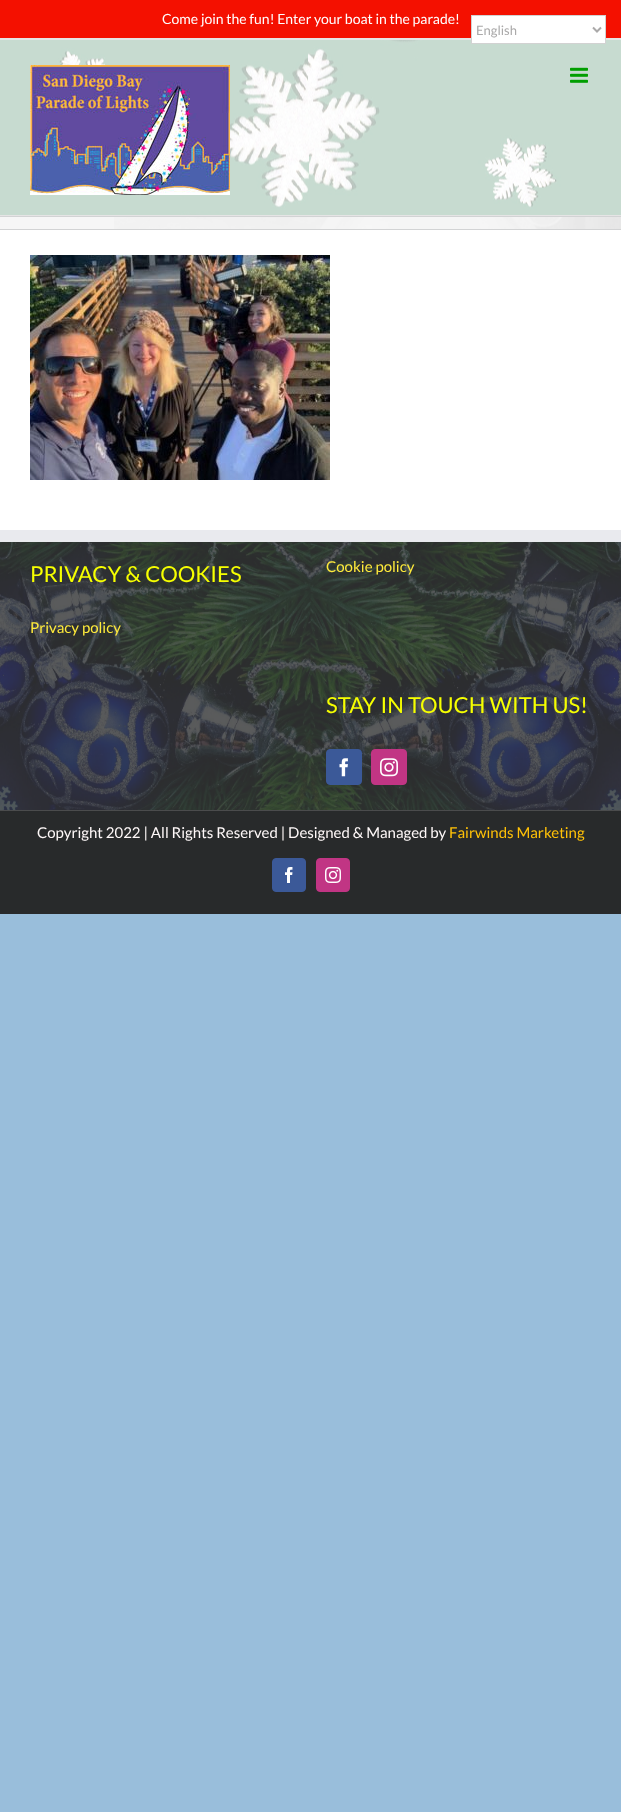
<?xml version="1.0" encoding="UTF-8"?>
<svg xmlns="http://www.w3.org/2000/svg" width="621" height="1812">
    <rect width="100%" height="100%" fill="#99BEDB"/>
    <rect x="0" y="40" width="621" height="490" fill="#FFFFFF"/>
    <rect x="0" y="0" width="621" height="38" fill="#F41000"/>
    <rect x="0" y="38" width="621" height="2" fill="#E5E5E5"/>
    <text x="162" y="24" font-family="Lato" font-size="14" fill="#FFFFFF">Come join the fun! Enter your boat in the parade!</text>
    <image x="0" y="40" width="621" height="175" href="img_01.png"/>
    <rect x="0" y="215" width="621" height="1" fill="#E5E5E5"/>
    <image x="30" y="65" width="200" height="130" href="img_02.png"/>
    <image x="570" y="67" width="18" height="16" href="img_03.png"/>
    <rect x="0" y="217" width="621" height="12" fill="#F6F6F6"/>
    <image x="114" y="217" width="507" height="12" href="img_04.png"/>
    <rect x="0" y="216" width="621" height="1" fill="#D2D3D4"/>
    <rect x="0" y="229" width="621" height="1" fill="#D2D3D4"/>
    <image x="30" y="255" width="300" height="225" href="img_05.png"/>
    <rect x="0" y="542" width="621" height="268" fill="#363839"/>
    <image x="0" y="542" width="621" height="268" href="img_06.png"/>
    <rect x="0" y="530" width="621" height="12" fill="#E9EAEE"/>
    <text x="30" y="582" font-family="Lato" font-size="22" fill="#F6FF00">PRIVACY &amp; COOKIES</text>
    <text x="30" y="633" font-family="Lato" font-size="15" fill="#FFEB3B">Privacy policy</text>
    <text x="326" y="572" font-family="Lato" font-size="15" fill="#FFEB3B">Cookie policy</text>
    <text x="326" y="713" font-family="Lato" font-size="22" fill="#F6FF00">STAY IN TOUCH WITH US!</text>
    <rect x="326.5" y="749.5" width="35" height="35" rx="3.5" fill="#3B5998" stroke="#3B5998"/>
    <image x="339" y="758" width="9" height="19" href="img_07.png"/>
    <rect x="371.5" y="749.5" width="35" height="35" rx="3.5" fill="#C13584" stroke="#C13584"/>
    <image x="380" y="758" width="18" height="19" href="img_08.png"/>
    <rect x="0" y="811" width="621" height="103" fill="#282A2B"/>
    <rect x="0" y="810" width="621" height="1" fill="#4B4C4D"/>
    <text x="37" y="838" font-family="Lato" font-size="15" fill="#FFF9F9">Copyright 2022 | All Rights Reserved | Designed &amp; Managed by</text>
    <text x="449" y="838" font-family="Lato" font-size="15" fill="#FFC107">Fairwinds Marketing</text>
    <rect x="272.5" y="858.5" width="33" height="33" rx="3.5" fill="#3B5998" stroke="#3B5998"/>
    <image x="285" y="867" width="8" height="16" href="img_09.png"/>
    <rect x="316.5" y="858.5" width="33" height="33" rx="3.5" fill="#C13584" stroke="#C13584"/>
    <image x="325" y="867" width="16" height="16" href="img_10.png"/>
    <rect x="471.5" y="15.5" width="134" height="28" fill="#FFFFFF" stroke="#D2D2D2"/>
    <path d="M 593 27.5 L 597 31.5 L 601 27.5" fill="none" stroke="#AAA9A9" stroke-width="2"/>
    <text x="476" y="35" font-family="Lato" font-size="13" fill="#AAA9A9">English</text>
</svg>
